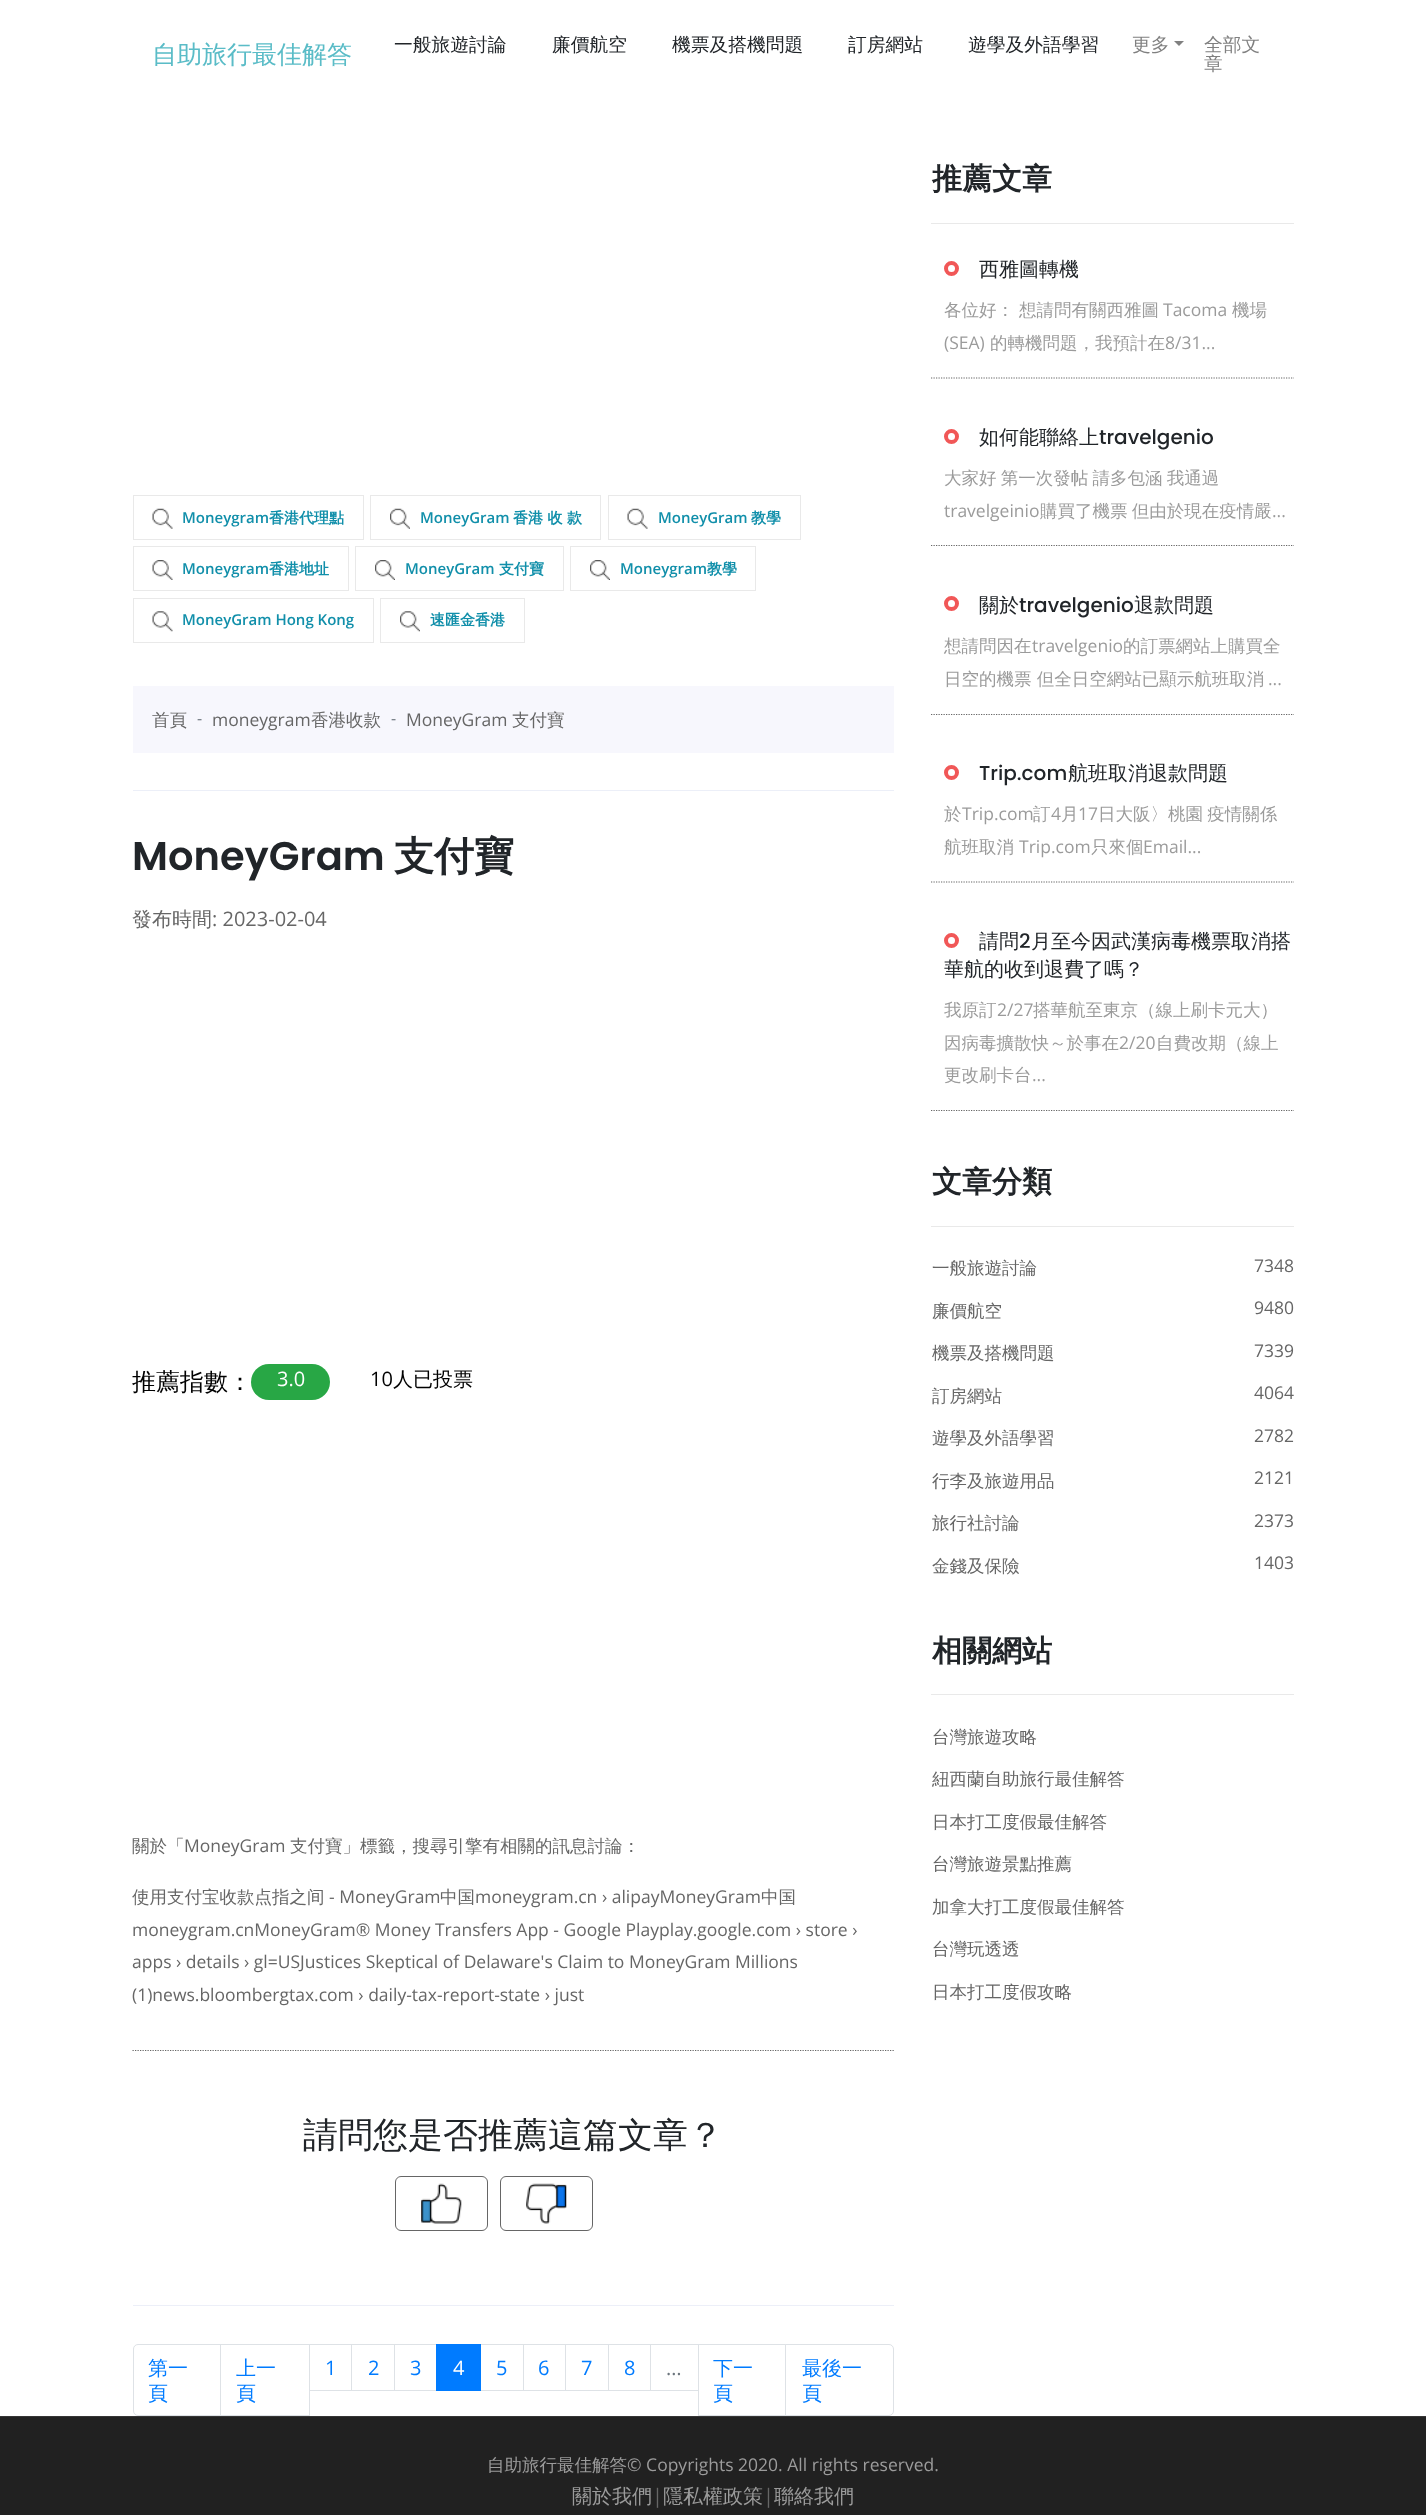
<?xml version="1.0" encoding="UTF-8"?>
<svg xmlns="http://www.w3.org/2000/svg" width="1426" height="2515">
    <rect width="100%" height="100%" fill="#FFFFFF"/>
    <text x="152" y="63" font-family="WenQuanYi Zen Hei" font-size="25" font-weight="500" fill="#5ABCC7">自助旅行最佳解答</text>
    <text x="394" y="51" font-family="WenQuanYi Zen Hei" font-size="18.75" font-weight="500" fill="#212529">一般旅遊討論</text>
    <text x="552" y="51" font-family="WenQuanYi Zen Hei" font-size="18.75" font-weight="500" fill="#212529">廉價航空</text>
    <text x="672" y="51" font-family="WenQuanYi Zen Hei" font-size="18.75" font-weight="500" fill="#212529">機票及搭機問題</text>
    <text x="848" y="51" font-family="WenQuanYi Zen Hei" font-size="18.75" font-weight="500" fill="#212529">訂房網站</text>
    <text x="968" y="51" font-family="WenQuanYi Zen Hei" font-size="18.75" font-weight="500" fill="#212529">遊學及外語學習</text>
    <text x="1132" y="51" font-family="WenQuanYi Zen Hei" font-size="18.75" font-weight="500" fill="#808080">更多</text>
    <path d="M 1174 41 H 1184 L 1179 46 Z" fill="#808080"/>
    <text font-family="WenQuanYi Zen Hei" font-size="18.75" font-weight="500" fill="#808080">
        <tspan x="1204" y="51">全部文</tspan>
        <tspan x="1204" y="70">章</tspan>
    </text>
    <rect x="133.5" y="495.5" width="230" height="44" fill="none" stroke="#E9E9E9"/>
    <image x="152" y="508" width="21" height="21" href="img_01.png"/>
    <text x="182" y="523" font-family="Open Sans" font-size="15" font-weight="600" fill="#118FAA">Moneygram</text>
    <text x="269" y="523" font-family="WenQuanYi Zen Hei" font-size="15" font-weight="700" fill="#118FAA">香港代理點</text>
    <rect x="370.5" y="495.5" width="230" height="44" fill="none" stroke="#E9E9E9"/>
    <image x="390" y="508" width="20" height="21" href="img_02.png"/>
    <text x="420" y="523" font-family="Open Sans" font-size="15" font-weight="600" fill="#118FAA">MoneyGram</text>
    <text x="513" y="523" font-family="WenQuanYi Zen Hei" font-size="15" font-weight="700" fill="#118FAA">香港 收 款</text>
    <rect x="608.5" y="495.5" width="192" height="44" fill="none" stroke="#E9E9E9"/>
    <image x="627" y="508" width="21" height="21" href="img_01.png"/>
    <text x="658" y="523" font-family="Open Sans" font-size="15" font-weight="600" fill="#118FAA">MoneyGram</text>
    <text x="751" y="523" font-family="WenQuanYi Zen Hei" font-size="15" font-weight="700" fill="#118FAA">教學</text>
    <rect x="133.5" y="546.5" width="215" height="44" fill="none" stroke="#E9E9E9"/>
    <image x="152" y="560" width="21" height="20" href="img_03.png"/>
    <text x="182" y="574" font-family="Open Sans" font-size="15" font-weight="600" fill="#118FAA">Moneygram</text>
    <text x="269" y="574" font-family="WenQuanYi Zen Hei" font-size="15" font-weight="700" fill="#118FAA">香港地址</text>
    <rect x="355.5" y="546.5" width="208" height="44" fill="none" stroke="#E9E9E9"/>
    <image x="375" y="560" width="20" height="20" href="img_04.png"/>
    <text x="405" y="574" font-family="Open Sans" font-size="15" font-weight="600" fill="#118FAA">MoneyGram</text>
    <text x="499" y="574" font-family="WenQuanYi Zen Hei" font-size="15" font-weight="700" fill="#118FAA">支付寶</text>
    <rect x="570.5" y="546.5" width="185" height="44" fill="none" stroke="#E9E9E9"/>
    <image x="590" y="560" width="20" height="20" href="img_04.png"/>
    <text x="620" y="574" font-family="Open Sans" font-size="15" font-weight="600" fill="#118FAA">Moneygram</text>
    <text x="707" y="574" font-family="WenQuanYi Zen Hei" font-size="15" font-weight="700" fill="#118FAA">教學</text>
    <rect x="133.5" y="598.5" width="240" height="44" fill="none" stroke="#E9E9E9"/>
    <image x="152" y="611" width="21" height="21" href="img_05.png"/>
    <text x="182" y="625" font-family="Open Sans" font-size="15" font-weight="600" fill="#118FAA">MoneyGram Hong Kong</text>
    <rect x="380.5" y="598.5" width="144" height="44" fill="none" stroke="#E9E9E9"/>
    <image x="400" y="611" width="20" height="21" href="img_06.png"/>
    <text x="430" y="625" font-family="WenQuanYi Zen Hei" font-size="15" font-weight="700" fill="#118FAA">速匯金香港</text>
    <rect x="133" y="686" width="761" height="67" fill="#F7F7FD"/>
    <text x="152" y="726" font-family="WenQuanYi Zen Hei" font-size="17.5" font-weight="500" fill="#666666">首頁</text>
    <text x="197" y="724" font-family="Open Sans" font-size="16" fill="#6C757D">-</text>
    <text x="212" y="726" font-family="Open Sans" font-size="17.5" fill="#666666">moneygram</text>
    <text x="311" y="726" font-family="WenQuanYi Zen Hei" font-size="17.5" font-weight="500" fill="#666666">香港收款</text>
    <text x="391" y="724" font-family="Open Sans" font-size="16" fill="#6C757D">-</text>
    <text x="406" y="726" font-family="Open Sans" font-size="17.5" fill="#666666">MoneyGram</text>
    <text x="512" y="726" font-family="WenQuanYi Zen Hei" font-size="17.5" font-weight="500" fill="#666666">支付寶</text>
    <rect x="133" y="790" width="761" height="1" fill="#ECEFF8"/>
    <text x="132" y="870" font-family="Poppins" font-size="40" font-weight="600" fill="#212529">MoneyGram</text>
    <text x="394" y="870" font-family="WenQuanYi Zen Hei" font-size="40" font-weight="700" fill="#212529">支付寶</text>
    <text x="132" y="926" font-family="WenQuanYi Zen Hei" font-size="20" font-weight="500" fill="#666666">發布時間</text>
    <text x="212" y="926" font-family="Open Sans" font-size="20" fill="#666666">: 2023-02-04</text>
    <text x="132" y="1390" font-family="WenQuanYi Zen Hei" font-size="24" font-weight="500" fill="#000000">推薦指數：</text>
    <rect x="251" y="1364" width="79" height="36" rx="18" fill="#28A745"/>
    <text x="277" y="1386" font-family="Open Sans" font-size="20" fill="#FFFFFF">3.0</text>
    <text x="370" y="1386" font-family="Open Sans" font-size="20" fill="#000000">10</text>
    <text x="393" y="1386" font-family="WenQuanYi Zen Hei" font-size="20" font-weight="500" fill="#000000">人已投票</text>
    <path d="M 132.5 2050.5 H 894" fill="none" stroke="#666666" stroke-width="1.2" stroke-dasharray="1.25 1.25"/>
    <text x="132" y="1852" font-family="WenQuanYi Zen Hei" font-size="17.5" font-weight="500" fill="#666666">關於「</text>
    <text x="184" y="1852" font-family="Open Sans" font-size="17.5" fill="#666666">MoneyGram</text>
    <text x="290" y="1852" font-family="WenQuanYi Zen Hei" font-size="17.5" font-weight="500" fill="#666666">支付寶」標籤，搜尋引擎有相關的訊息討論：</text>
    <text x="132" y="1903" font-family="WenQuanYi Zen Hei" font-size="17.5" font-weight="500" fill="#666666">使用支付宝收款点指之间</text>
    <text x="329" y="1903" font-family="Open Sans" font-size="17.5" fill="#666666">- MoneyGram</text>
    <text x="440" y="1903" font-family="WenQuanYi Zen Hei" font-size="17.5" font-weight="500" fill="#666666">中国</text>
    <text x="475" y="1903" font-family="Open Sans" font-size="17.5" fill="#666666">moneygram.cn › alipayMoneyGram</text>
    <text x="761" y="1903" font-family="WenQuanYi Zen Hei" font-size="17.5" font-weight="500" fill="#666666">中国</text>
    <text font-family="Open Sans" font-size="17.5" fill="#666666">
        <tspan x="132" y="1936">moneygram.cnMoneyGram® Money Transfers App - Google Playplay.google.com › store ›</tspan>
        <tspan x="132" y="1968">apps › details › gl=USJustices Skeptical of Delaware's Claim to MoneyGram Millions</tspan>
        <tspan x="132" y="2001">(1)news.bloombergtax.com › daily-tax-report-state › just</tspan>
    </text>
    <text x="303" y="2147" font-family="WenQuanYi Zen Hei" font-size="35" font-weight="500" fill="#212529">請問您是否推薦這篇文章？</text>
    <rect x="395.5" y="2176.5" width="92" height="54" rx="5.5" fill="none" stroke="#666666"/>
    <image x="421" y="2183" width="41" height="41" href="img_07.png"/>
    <rect x="500.5" y="2176.5" width="92" height="54" rx="5.5" fill="none" stroke="#666666"/>
    <image x="526" y="2183" width="41" height="41" href="img_08.png"/>
    <rect x="133" y="2305" width="761" height="1" fill="#ECEFF8"/>
    <path d="M 138 2344.5 H 220.5 V 2415.5 H 138 C 135.5 2415.5 133.5 2413.5 133.5 2411 V 2349 C 133.5 2346.5 135.5 2344.5 138 2344.5 Z" fill="none" stroke="#DEE2E6"/>
    <text font-family="WenQuanYi Zen Hei" font-size="20" font-weight="500" fill="#007BFF">
        <tspan x="148" y="2375">第一</tspan>
        <tspan x="148" y="2400">頁</tspan>
    </text>
    <rect x="220.5" y="2344.5" width="89" height="71" fill="none" stroke="#DEE2E6"/>
    <text font-family="WenQuanYi Zen Hei" font-size="20" font-weight="500" fill="#007BFF">
        <tspan x="236" y="2375">上一</tspan>
        <tspan x="236" y="2400">頁</tspan>
    </text>
    <rect x="309.5" y="2344.5" width="43" height="46" fill="none" stroke="#DEE2E6"/>
    <text x="325" y="2375" font-family="Open Sans" font-size="20" fill="#007BFF">1</text>
    <rect x="352" y="2345" width="1" height="45" fill="#FFFFFF"/>
    <rect x="351.5" y="2344.5" width="43" height="46" fill="none" stroke="#DEE2E6"/>
    <text x="368" y="2375" font-family="Open Sans" font-size="20" fill="#007BFF">2</text>
    <rect x="394.5" y="2344.5" width="43" height="46" fill="none" stroke="#DEE2E6"/>
    <text x="410" y="2375" font-family="Open Sans" font-size="20" fill="#007BFF">3</text>
    <rect x="480.5" y="2344.5" width="43" height="46" fill="none" stroke="#DEE2E6"/>
    <rect x="436" y="2344" width="45" height="47" fill="#007BFF"/>
    <text x="453" y="2375" font-family="Open Sans" font-size="20" fill="#FFFFFF">4</text>
    <text x="496" y="2375" font-family="Open Sans" font-size="20" fill="#007BFF">5</text>
    <rect x="523.5" y="2344.5" width="42" height="46" fill="none" stroke="#DEE2E6"/>
    <text x="538" y="2375" font-family="Open Sans" font-size="20" fill="#007BFF">6</text>
    <rect x="565.5" y="2344.5" width="43" height="46" fill="none" stroke="#DEE2E6"/>
    <text x="581" y="2375" font-family="Open Sans" font-size="20" fill="#007BFF">7</text>
    <rect x="608.5" y="2344.5" width="42" height="46" fill="none" stroke="#DEE2E6"/>
    <text x="624" y="2375" font-family="Open Sans" font-size="20" fill="#007BFF">8</text>
    <rect x="650.5" y="2344.5" width="48" height="46" fill="none" stroke="#DEE2E6"/>
    <text x="666" y="2375" font-family="Open Sans" font-size="20" fill="#6C757D">…</text>
    <rect x="698.5" y="2344.5" width="87" height="71" fill="none" stroke="#DEE2E6"/>
    <text font-family="WenQuanYi Zen Hei" font-size="20" font-weight="500" fill="#007BFF">
        <tspan x="713" y="2375">下一</tspan>
        <tspan x="713" y="2400">頁</tspan>
    </text>
    <path d="M 785.5 2344.5 H 889 C 891.5 2344.5 893.5 2346.5 893.5 2349 V 2411 C 893.5 2413.5 891.5 2415.5 889 2415.5 H 785.5 Z" fill="#FFFFFF" stroke="#DEE2E6"/>
    <text font-family="WenQuanYi Zen Hei" font-size="20" font-weight="500" fill="#007BFF">
        <tspan x="802" y="2375">最後一</tspan>
        <tspan x="802" y="2400">頁</tspan>
    </text>
    <rect x="931" y="223" width="363" height="1" fill="#E9E9E9"/>
    <text x="932" y="189" font-family="WenQuanYi Zen Hei" font-size="30" font-weight="700" fill="#212529">推薦文章</text>
    <path d="M 931 378 H 1294" fill="none" stroke="#666666" stroke-width="1.2" stroke-dasharray="1.25 1.25"/>
    <circle cx="951.5" cy="268.5" r="5.5" fill="none" stroke="#F15757" stroke-width="4"/>
    <text x="979" y="276" font-family="WenQuanYi Zen Hei" font-size="20" font-weight="500" fill="#212529">西雅圖轉機</text>
    <text x="944" y="316" font-family="WenQuanYi Zen Hei" font-size="17.5" font-weight="500" fill="#9B9B9B">各位好：</text>
    <text x="1019" y="316" font-family="WenQuanYi Zen Hei" font-size="17.5" font-weight="500" fill="#9B9B9B">想請問有關西雅圖</text>
    <text x="1163" y="316" font-family="Open Sans" font-size="17.5" fill="#9B9B9B">Tacoma</text>
    <text x="1232" y="316" font-family="WenQuanYi Zen Hei" font-size="17.5" font-weight="500" fill="#9B9B9B">機場</text>
    <text x="944" y="349" font-family="Open Sans" font-size="17.5" fill="#9B9B9B">(SEA)</text>
    <text x="990" y="349" font-family="WenQuanYi Zen Hei" font-size="17.5" font-weight="500" fill="#9B9B9B">的轉機問題，我預計在</text>
    <text x="1165" y="349" font-family="Open Sans" font-size="17.5" fill="#9B9B9B">8/31...</text>
    <path d="M 931 545.5 H 1294" fill="none" stroke="#666666" stroke-width="1.2" stroke-dasharray="1.25 1.25"/>
    <circle cx="951.5" cy="436.5" r="5.5" fill="none" stroke="#F15757" stroke-width="4"/>
    <text x="979" y="444" font-family="WenQuanYi Zen Hei" font-size="20" font-weight="500" fill="#212529">如何能聯絡上</text>
    <text x="1099" y="444" font-family="Poppins" font-size="20" font-weight="500" fill="#212529">travelgenio</text>
    <text x="944" y="484" word-spacing="-1" font-family="WenQuanYi Zen Hei" font-size="17.5" font-weight="500" fill="#9B9B9B">大家好 第一次發帖 請多包涵 我通過</text>
    <text x="944" y="517" font-family="Open Sans" font-size="17.5" fill="#9B9B9B">travelgeinio</text>
    <text x="1040" y="517" word-spacing="-1" font-family="WenQuanYi Zen Hei" font-size="17.5" font-weight="500" fill="#9B9B9B">購買了機票 但由於現在疫情嚴</text>
    <text x="1272" y="517" font-family="Open Sans" font-size="17.5" fill="#9B9B9B">...</text>
    <path d="M 931 714.5 H 1294" fill="none" stroke="#666666" stroke-width="1.2" stroke-dasharray="1.25 1.25"/>
    <circle cx="951.5" cy="603.5" r="5.5" fill="none" stroke="#F15757" stroke-width="4"/>
    <text x="979" y="612" font-family="WenQuanYi Zen Hei" font-size="20" font-weight="500" fill="#212529">關於</text>
    <text x="1019" y="612" font-family="Poppins" font-size="20" font-weight="500" fill="#212529">travelgenio</text>
    <text x="1134" y="612" font-family="WenQuanYi Zen Hei" font-size="20" font-weight="500" fill="#212529">退款問題</text>
    <text x="944" y="652" font-family="WenQuanYi Zen Hei" font-size="17.5" font-weight="500" fill="#9B9B9B">想請問因在</text>
    <text x="1032" y="652" font-family="Open Sans" font-size="17.5" fill="#9B9B9B">travelgenio</text>
    <text x="1123" y="652" font-family="WenQuanYi Zen Hei" font-size="17.5" font-weight="500" fill="#9B9B9B">的訂票網站上購買全</text>
    <text x="944" y="685" font-family="WenQuanYi Zen Hei" font-size="17.5" font-weight="500" fill="#9B9B9B">日空的機票 但全日空網站已顯示航班取消</text>
    <text x="1268" y="685" font-family="Open Sans" font-size="17.5" fill="#9B9B9B">...</text>
    <path d="M 931 882 H 1294" fill="none" stroke="#666666" stroke-width="1.2" stroke-dasharray="1.25 1.25"/>
    <circle cx="951.5" cy="772.5" r="5.5" fill="none" stroke="#F15757" stroke-width="4"/>
    <text x="979" y="780" font-family="Poppins" font-size="20" font-weight="500" fill="#212529">Trip.com</text>
    <text x="1068" y="780" font-family="WenQuanYi Zen Hei" font-size="20" font-weight="500" fill="#212529">航班取消退款問題</text>
    <text x="944" y="820" font-family="WenQuanYi Zen Hei" font-size="17.5" font-weight="500" fill="#9B9B9B">於</text>
    <text x="962" y="820" font-family="Open Sans" font-size="17.5" fill="#9B9B9B">Trip.com</text>
    <text x="1033" y="820" font-family="WenQuanYi Zen Hei" font-size="17.5" font-weight="500" fill="#9B9B9B">訂</text>
    <text x="1051" y="820" font-family="Open Sans" font-size="17.5" fill="#9B9B9B">4</text>
    <text x="1061" y="820" font-family="WenQuanYi Zen Hei" font-size="17.5" font-weight="500" fill="#9B9B9B">月</text>
    <text x="1078" y="820" font-family="Open Sans" font-size="17.5" fill="#9B9B9B">17</text>
    <text x="1098" y="820" word-spacing="-1" font-family="WenQuanYi Zen Hei" font-size="17.5" font-weight="500" fill="#9B9B9B">日大阪〉桃園 疫情關係</text>
    <text x="944" y="853" font-family="WenQuanYi Zen Hei" font-size="17.5" font-weight="500" fill="#9B9B9B">航班取消</text>
    <text x="1019" y="853" font-family="Open Sans" font-size="17.5" fill="#9B9B9B">Trip.com</text>
    <text x="1091" y="853" font-family="WenQuanYi Zen Hei" font-size="17.5" font-weight="500" fill="#9B9B9B">只來個</text>
    <text x="1143" y="853" font-family="Open Sans" font-size="17.5" fill="#9B9B9B">Email...</text>
    <path d="M 931 1110.5 H 1294" fill="none" stroke="#666666" stroke-width="1.2" stroke-dasharray="1.25 1.25"/>
    <circle cx="951.5" cy="940.5" r="5.5" fill="none" stroke="#F15757" stroke-width="4"/>
    <text x="979" y="948" font-family="WenQuanYi Zen Hei" font-size="20" font-weight="500" fill="#212529">請問</text>
    <text x="1019" y="948" font-family="Poppins" font-size="20" font-weight="500" fill="#212529">2</text>
    <text x="1031" y="948" font-family="WenQuanYi Zen Hei" font-size="20" font-weight="500" fill="#212529">月至今因武漢病毒機票取消搭</text>
    <text x="944" y="976" font-family="WenQuanYi Zen Hei" font-size="20" font-weight="500" fill="#212529">華航的收到退費了嗎？</text>
    <text x="944" y="1016" font-family="WenQuanYi Zen Hei" font-size="17.5" font-weight="500" fill="#9B9B9B">我原訂</text>
    <text x="997" y="1016" font-family="Open Sans" font-size="17.5" fill="#9B9B9B">2/27</text>
    <text x="1033" y="1016" font-family="WenQuanYi Zen Hei" font-size="17.5" font-weight="500" fill="#9B9B9B">搭華航至東京（線上刷卡元大）</text>
    <text x="944" y="1049" font-family="WenQuanYi Zen Hei" font-size="17.5" font-weight="500" fill="#9B9B9B">因病毒擴散快～於事在</text>
    <text x="1119" y="1049" font-family="Open Sans" font-size="17.5" fill="#9B9B9B">2/20</text>
    <text x="1156" y="1049" font-family="WenQuanYi Zen Hei" font-size="17.5" font-weight="500" fill="#9B9B9B">自費改期（線上</text>
    <text x="944" y="1081" font-family="WenQuanYi Zen Hei" font-size="17.5" font-weight="500" fill="#9B9B9B">更改刷卡台</text>
    <text x="1032" y="1081" font-family="Open Sans" font-size="17.5" fill="#9B9B9B">...</text>
    <rect x="931" y="1226" width="363" height="1" fill="#E9E9E9"/>
    <text x="932" y="1192" font-family="WenQuanYi Zen Hei" font-size="30" font-weight="700" fill="#212529">文章分類</text>
    <text x="932" y="1274" font-family="WenQuanYi Zen Hei" font-size="17.5" font-weight="500" fill="#666666">一般旅遊討論</text>
    <text x="1254" y="1272" font-family="Open Sans" font-size="17.5" fill="#666666">7348</text>
    <text x="932" y="1317" font-family="WenQuanYi Zen Hei" font-size="17.5" font-weight="500" fill="#666666">廉價航空</text>
    <text x="1254" y="1314" font-family="Open Sans" font-size="17.5" fill="#666666">9480</text>
    <text x="932" y="1359" font-family="WenQuanYi Zen Hei" font-size="17.5" font-weight="500" fill="#666666">機票及搭機問題</text>
    <text x="1254" y="1357" font-family="Open Sans" font-size="17.5" fill="#666666">7339</text>
    <text x="932" y="1402" font-family="WenQuanYi Zen Hei" font-size="17.5" font-weight="500" fill="#666666">訂房網站</text>
    <text x="1254" y="1399" font-family="Open Sans" font-size="17.5" fill="#666666">4064</text>
    <text x="932" y="1444" font-family="WenQuanYi Zen Hei" font-size="17.5" font-weight="500" fill="#666666">遊學及外語學習</text>
    <text x="1254" y="1442" font-family="Open Sans" font-size="17.5" fill="#666666">2782</text>
    <text x="932" y="1487" font-family="WenQuanYi Zen Hei" font-size="17.5" font-weight="500" fill="#666666">行李及旅遊用品</text>
    <text x="1254" y="1484" font-family="Open Sans" font-size="17.5" fill="#666666">2121</text>
    <text x="932" y="1529" font-family="WenQuanYi Zen Hei" font-size="17.5" font-weight="500" fill="#666666">旅行社討論</text>
    <text x="1254" y="1527" font-family="Open Sans" font-size="17.5" fill="#666666">2373</text>
    <text x="932" y="1572" font-family="WenQuanYi Zen Hei" font-size="17.5" font-weight="500" fill="#666666">金錢及保險</text>
    <text x="1254" y="1569" font-family="Open Sans" font-size="17.5" fill="#666666">1403</text>
    <rect x="931" y="1694" width="363" height="1" fill="#E9E9E9"/>
    <text x="932" y="1661" font-family="WenQuanYi Zen Hei" font-size="30" font-weight="700" fill="#212529">相關網站</text>
    <text x="932" y="1743" font-family="WenQuanYi Zen Hei" font-size="17.5" font-weight="500" fill="#666666">台灣旅遊攻略</text>
    <text x="932" y="1785" font-family="WenQuanYi Zen Hei" font-size="17.5" font-weight="500" fill="#666666">紐西蘭自助旅行最佳解答</text>
    <text x="932" y="1828" font-family="WenQuanYi Zen Hei" font-size="17.5" font-weight="500" fill="#666666">日本打工度假最佳解答</text>
    <text x="932" y="1870" font-family="WenQuanYi Zen Hei" font-size="17.5" font-weight="500" fill="#666666">台灣旅遊景點推薦</text>
    <text x="932" y="1913" font-family="WenQuanYi Zen Hei" font-size="17.5" font-weight="500" fill="#666666">加拿大打工度假最佳解答</text>
    <text x="932" y="1955" font-family="WenQuanYi Zen Hei" font-size="17.5" font-weight="500" fill="#666666">台灣玩透透</text>
    <text x="932" y="1998" font-family="WenQuanYi Zen Hei" font-size="17.5" font-weight="500" fill="#666666">日本打工度假攻略</text>
    <rect x="0" y="2417" width="1426" height="98" fill="#212121"/>
    <rect x="0" y="2416" width="1426" height="1" fill="#363636"/>
    <text x="487" y="2471" font-family="WenQuanYi Zen Hei" font-size="17.5" font-weight="500" fill="#9B9B9B">自助旅行最佳解答</text>
    <text x="627" y="2471" font-family="Open Sans" font-size="17.5" fill="#9B9B9B">© Copyrights 2020. All rights reserved.</text>
    <text x="572" y="2503" font-family="WenQuanYi Zen Hei" font-size="20" font-weight="500" fill="#9B9B9B">關於我們</text>
    <text x="652" y="2503" font-family="Open Sans" font-size="20" fill="#666666">|</text>
    <text x="663" y="2503" font-family="WenQuanYi Zen Hei" font-size="20" font-weight="500" fill="#9B9B9B">隱私權政策</text>
    <text x="763" y="2503" font-family="Open Sans" font-size="20" fill="#666666">|</text>
    <text x="774" y="2503" font-family="WenQuanYi Zen Hei" font-size="20" font-weight="500" fill="#9B9B9B">聯絡我們</text>
</svg>
